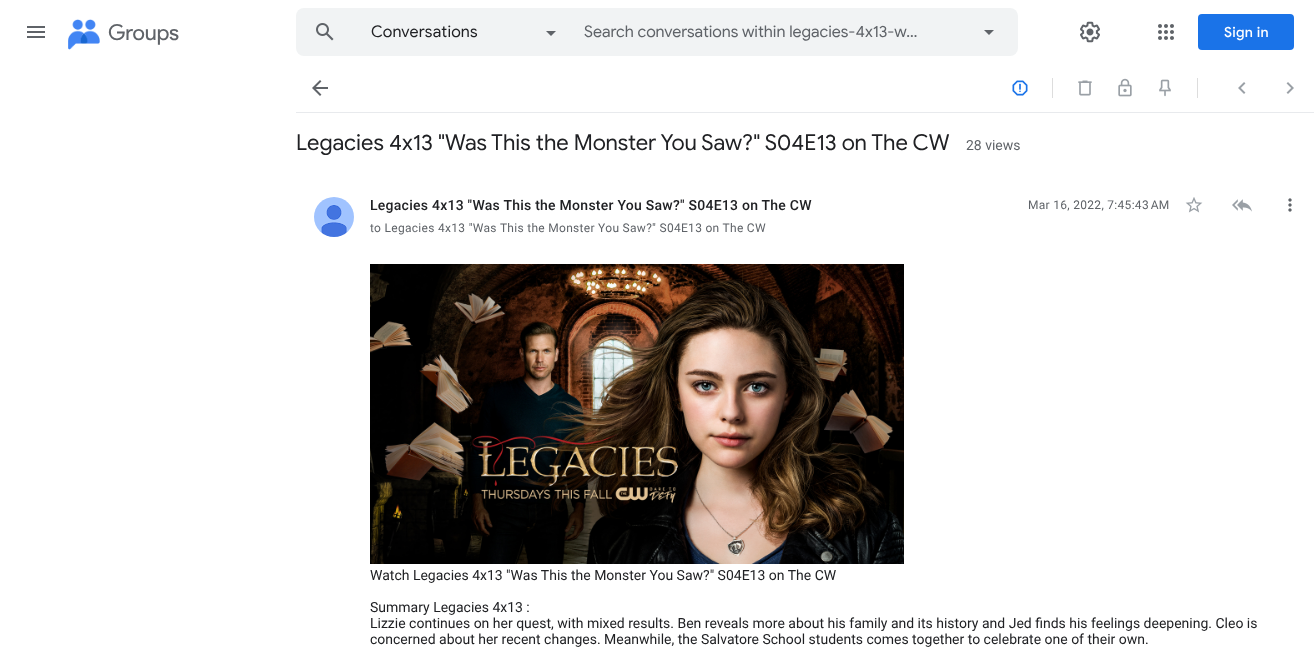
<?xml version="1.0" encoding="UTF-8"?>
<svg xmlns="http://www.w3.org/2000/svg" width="1314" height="658">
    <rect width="100%" height="100%" fill="#FFFFFF"/>
    <image x="27" y="26" width="18" height="12" href="img_01.png"/>
    <image x="68" y="19" width="32" height="31" href="img_02.png"/>
    <text x="108" y="40" font-family="Product Sans" font-size="22" fill="#5F6368">Groups</text>
    <rect x="296" y="8" width="722" height="48" rx="8" fill="#F1F3F4"/>
    <image x="316" y="23" width="18" height="18" href="img_03.png"/>
    <text x="371" y="37" font-family="Google Sans" font-size="16" letter-spacing="0.25" fill="#202124">Conversations</text>
    <path d="M 546 31 H 556 L 551 36 Z" fill="#5F6368"/>
    <text x="584" y="37" font-family="Google Sans" font-size="16" fill="#5F6368">Search conversations within legacies-4x13-w…</text>
    <path d="M 984 30 L 989 35 L 994 30 Z" fill="#5F6368"/>
    <image x="1080" y="21" width="20" height="22" href="img_04.png"/>
    <image x="1158" y="24" width="16" height="16" href="img_05.png"/>
    <rect x="1198" y="14" width="96" height="36" rx="4" fill="#1A73E8"/>
    <text x="1224" y="37" font-family="Google Sans" font-size="14" font-weight="500" letter-spacing="0.25" fill="#FFFFFF">Sign in</text>
    <rect x="296" y="112" width="1018" height="1" fill="#E8EAED"/>
    <image x="312" y="80" width="16" height="16" href="img_06.png"/>
    <image x="1012" y="80" width="16" height="16" href="img_07.png"/>
    <rect x="1052" y="78" width="1" height="20" fill="#DDDDDD"/>
    <image x="1078" y="80" width="14" height="16" href="img_08.png"/>
    <image x="1118" y="78" width="14" height="19" href="img_09.png"/>
    <image x="1159" y="79" width="12" height="18" href="img_10.png"/>
    <rect x="1197" y="78" width="1" height="20" fill="#DDDDDD"/>
    <image x="1238" y="82" width="8" height="12" href="img_11.png"/>
    <image x="1286" y="82" width="8" height="12" href="img_12.png"/>
    <text x="296" y="150" font-family="Google Sans" font-size="22" fill="#202124">Legacies 4x13 "Was This the Monster You Saw?" S04E13 on The CW</text>
    <text x="966" y="150" font-family="Roboto" font-size="14" fill="#5F6368">28 views</text>
    <image x="314" y="197" width="40" height="40" href="img_13.png"/>
    <text x="370" y="210" font-family="Roboto" font-size="14" font-weight="500" letter-spacing="0.25" fill="#202124">Legacies 4x13 "Was This the Monster You Saw?" S04E13 on The CW</text>
    <text x="1028" y="209" font-family="Roboto" font-size="12" letter-spacing="0.3" fill="#5F6368">Mar 16, 2022, 7:45:43 AM</text>
    <image x="1185" y="197" width="18" height="16" href="img_14.png"/>
    <image x="1232" y="199" width="20" height="13" href="img_15.png"/>
    <image x="1288" y="198" width="4" height="14" href="img_16.png"/>
    <text x="370" y="232" font-family="Roboto" font-size="12" letter-spacing="0.3" fill="#5F6368">to Legacies 4x13 "Was This the Monster You Saw?" S04E13 on The CW</text>
    <image x="370" y="264" width="534" height="300" href="img_17.png"/>
    <text x="370" y="580" font-family="Roboto" font-size="14" fill="#202124">Watch Legacies 4x13 "Was This the Monster You Saw?" S04E13 on The CW</text>
    <text font-family="Roboto" font-size="14" fill="#202124">
        <tspan x="370" y="612">Summary Legacies 4x13 :</tspan>
        <tspan x="370" y="628">Lizzie continues on her quest, with mixed results. Ben reveals more about his family and its history and Jed finds his feelings deepening. Cleo is</tspan>
        <tspan x="370" y="644">concerned about her recent changes. Meanwhile, the Salvatore School students comes together to celebrate one of their own.</tspan>
    </text>
</svg>
